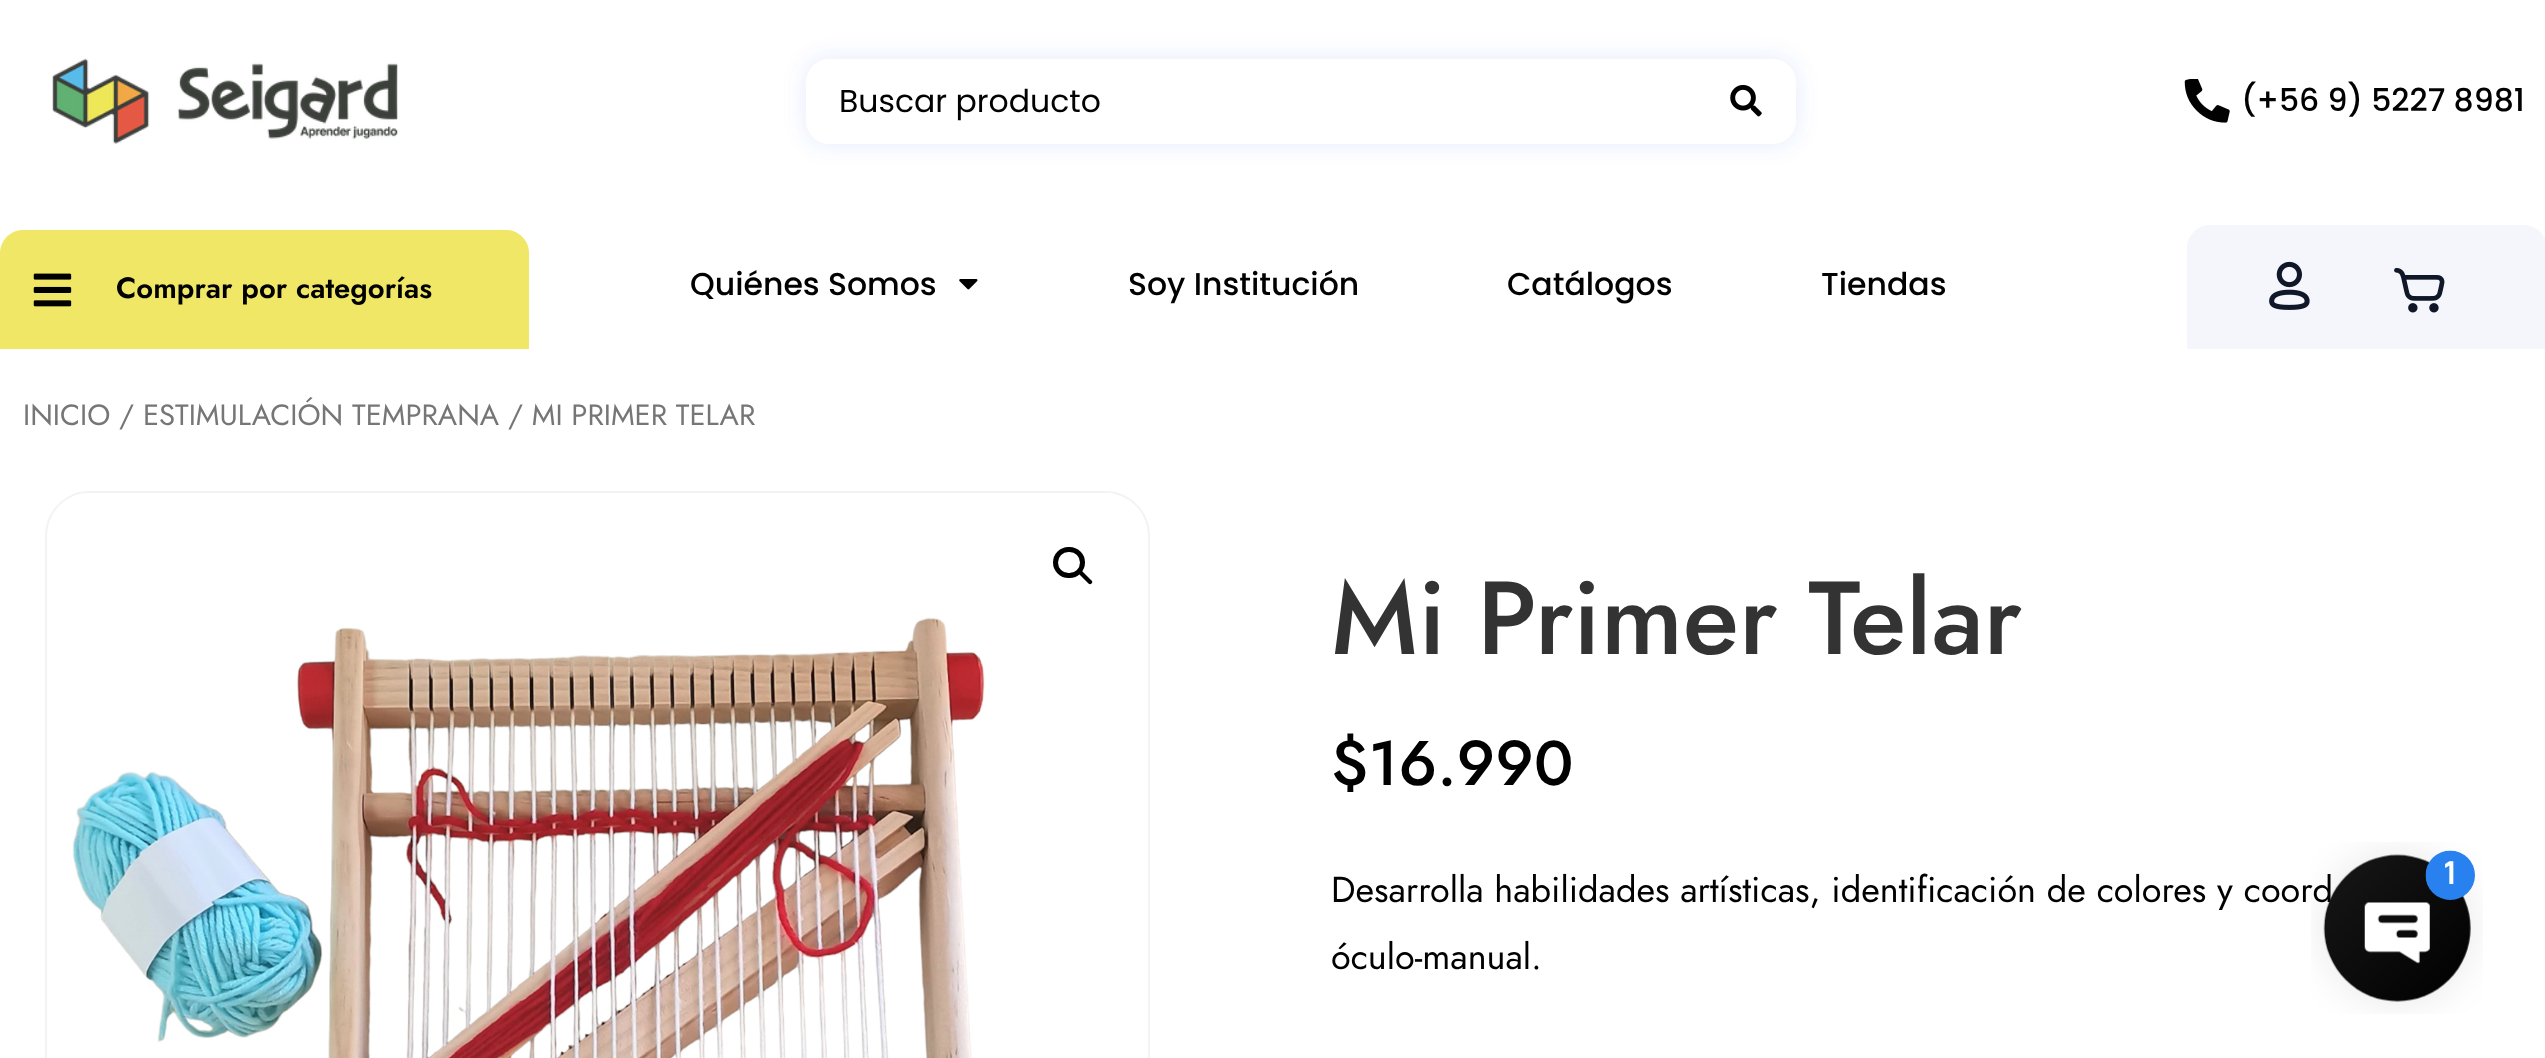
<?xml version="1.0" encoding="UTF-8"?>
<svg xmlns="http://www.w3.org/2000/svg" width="2545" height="1058">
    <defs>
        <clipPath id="clip1"><path d="M 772 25 H 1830 V 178 H 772 Z M 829 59 H 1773 C 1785.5 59 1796 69.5 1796 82 V 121 C 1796 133.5 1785.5 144 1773 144 H 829 C 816.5 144 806 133.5 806 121 V 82 C 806 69.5 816.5 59 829 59 Z" clip-rule="evenodd"/></clipPath>
        <filter id="blur1" x="-50%" y="-200%" width="200%" height="500%"><feGaussianBlur stdDeviation="11"/></filter>
    </defs>
    <rect width="100%" height="100%" fill="#FFFFFF"/>
    <image x="52" y="58" width="346" height="86" href="img_01.png"/>
    <g clip-path="url(#clip1)">
        <rect x="806" y="59" width="990" height="85" rx="23" fill="#4270EC" fill-opacity="0.15" filter="url(#blur1)"/>
    </g>
    <text x="839" y="112" font-family="Poppins" font-size="31.5" fill="#010101">Buscar producto</text>
    <image x="1730" y="84" width="32" height="33" href="img_02.png"/>
    <image x="2184" y="79" width="46" height="44" href="img_03.png"/>
    <text x="2241" y="111" font-family="Poppins" font-size="31.5" font-weight="500" fill="#010101">(+56 9) 5227 8981</text>
    <path d="M 23 230 H 506 C 518.5 230 529 240.5 529 253 V 349 H 0 V 253 C 0 240.5 10.5 230 23 230 Z" fill="#F0E766"/>
    <image x="33" y="273" width="39" height="34" href="img_04.png"/>
    <text x="116" y="298" font-family="Jost" font-size="29.25" font-weight="600" fill="#010101">Comprar por categorías</text>
    <text x="690" y="295" font-family="Poppins" font-size="31.5" font-weight="500" fill="#010101">Quiénes Somos</text>
    <image x="959" y="279" width="19" height="11" href="img_05.png"/>
    <text x="1128" y="295" font-family="Poppins" font-size="31.5" font-weight="500" fill="#010101">Soy Institución</text>
    <text x="1507" y="295" font-family="Poppins" font-size="31.5" font-weight="500" fill="#010101">Catálogos</text>
    <text x="1821" y="295" font-family="Poppins" font-size="31.5" font-weight="500" fill="#010101">Tiendas</text>
    <path d="M 2210 225 H 2524 C 2536.5 225 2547 235.5 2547 248 V 349 H 2187 V 248 C 2187 235.5 2197.5 225 2210 225 Z" fill="#F5F6FB"/>
    <image x="2269" y="261" width="41" height="49" href="img_06.png"/>
    <image x="2394" y="267" width="51" height="46" href="img_07.png"/>
    <text x="23" y="425" font-family="Jost" font-size="29.25" fill="#767676">INICIO / ESTIMULACIÓN TEMPRANA / MI PRIMER TELAR</text>
    <rect x="46" y="492" width="1103" height="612" rx="44" fill="none" stroke="#F3F3F3" stroke-width="2"/>
    <image x="59" y="493" width="1054" height="565" href="img_08.png"/>
    <rect x="1055.5" y="549.5" width="27" height="26" rx="13" fill="none" stroke="#000000" stroke-width="5"/>
    <path d="M 1079 571 C 1080 570 1081.5 570 1082 571 L 1091.5 580.5 C 1092.5 581 1092.5 582.5 1091.5 583.5 C 1091 584.5 1089.5 584.5 1088.5 583.5 L 1079 574 C 1078 573 1078 571.5 1079 571 Z" fill="#000000"/>
    <text x="1331" y="654" font-family="Jost" font-size="103.5" font-weight="500" fill="#333333">Mi Primer Telar</text>
    <text x="1331" y="785" font-family="Jost" font-size="63" font-weight="500" fill="#010101">$16.990</text>
    <text font-family="Jost" font-size="36" fill="#010101">
        <tspan x="1331" y="902">Desarrolla habilidades artísticas, identificación de colores y coord</tspan>
        <tspan x="1331" y="969">óculo-manual.</tspan>
    </text>
    <image x="2311" y="842" width="172" height="172" href="img_09.png"/>
</svg>
